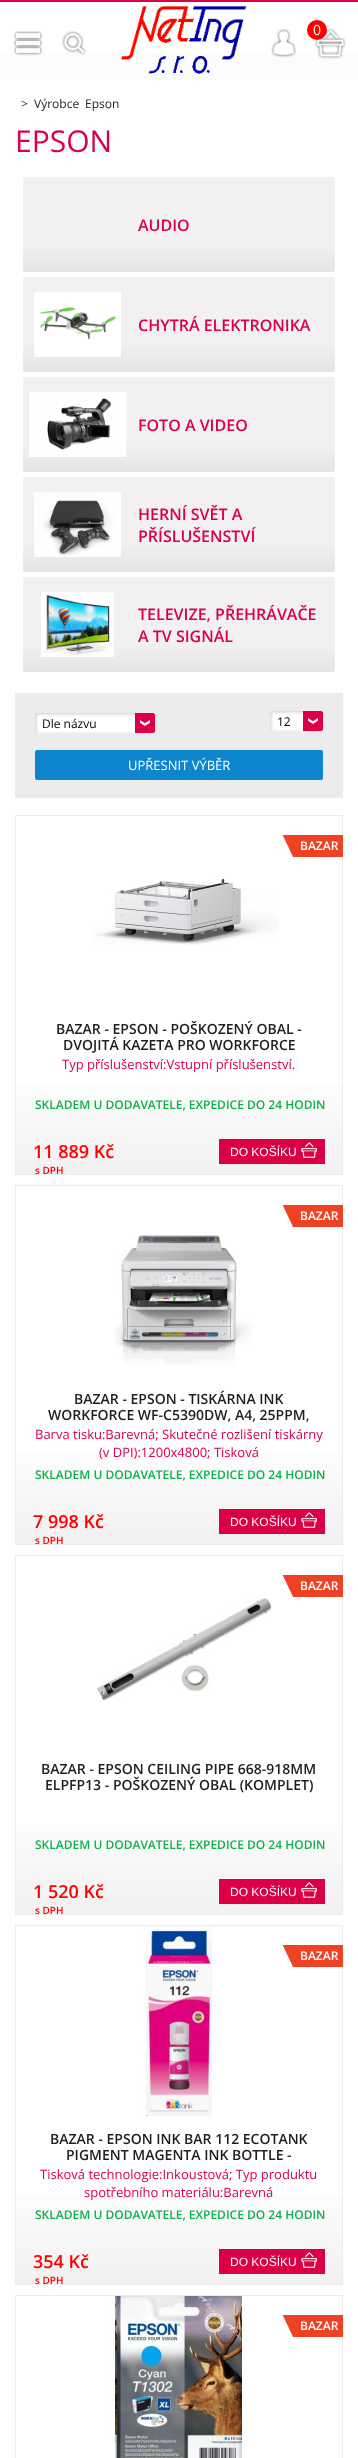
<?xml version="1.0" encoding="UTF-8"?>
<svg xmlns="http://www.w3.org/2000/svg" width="358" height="2458">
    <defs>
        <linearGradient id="g1" gradientUnits="userSpaceOnUse" x1="179" y1="2" x2="179" y2="80"><stop offset="0" stop-color="#FFFFFF"/><stop offset="1" stop-color="#FBFBFC"/></linearGradient>
        <linearGradient id="g2" gradientUnits="userSpaceOnUse" x1="179" y1="177" x2="179" y2="272"><stop offset="0.7" stop-color="#F2F0F0"/><stop offset="1" stop-color="#E6E3E3"/></linearGradient>
        <linearGradient id="g3" gradientUnits="userSpaceOnUse" x1="179" y1="277" x2="179" y2="372"><stop offset="0.7" stop-color="#F2F0F0"/><stop offset="1" stop-color="#E6E3E3"/></linearGradient>
        <linearGradient id="g4" gradientUnits="userSpaceOnUse" x1="179" y1="377" x2="179" y2="472"><stop offset="0.7" stop-color="#F2F0F0"/><stop offset="1" stop-color="#E6E3E3"/></linearGradient>
        <linearGradient id="g5" gradientUnits="userSpaceOnUse" x1="179" y1="477" x2="179" y2="572"><stop offset="0.7" stop-color="#F2F0F0"/><stop offset="1" stop-color="#E6E3E3"/></linearGradient>
        <linearGradient id="g6" gradientUnits="userSpaceOnUse" x1="179" y1="577" x2="179" y2="672"><stop offset="0.7" stop-color="#F2F0F0"/><stop offset="1" stop-color="#E6E3E3"/></linearGradient>
        <linearGradient id="g7" gradientUnits="userSpaceOnUse" x1="179" y1="816" x2="179" y2="1174"><stop offset="0.7" stop-color="#FFFFFF"/><stop offset="1" stop-color="#F2F0F0"/></linearGradient>
        <clipPath id="clip1"><rect x="33" y="1021" width="292" height="32"/></clipPath>
        <linearGradient id="g8" gradientUnits="userSpaceOnUse" x1="179" y1="1186" x2="179" y2="1544"><stop offset="0.7" stop-color="#FFFFFF"/><stop offset="1" stop-color="#F2F0F0"/></linearGradient>
        <linearGradient id="g9" gradientUnits="userSpaceOnUse" x1="179" y1="1556" x2="179" y2="1914"><stop offset="0.7" stop-color="#FFFFFF"/><stop offset="1" stop-color="#F2F0F0"/></linearGradient>
        <linearGradient id="g10" gradientUnits="userSpaceOnUse" x1="179" y1="1926" x2="179" y2="2284"><stop offset="0.7" stop-color="#FFFFFF"/><stop offset="1" stop-color="#F2F0F0"/></linearGradient>
    </defs>
    <rect width="100%" height="100%" fill="#FFFFFF"/>
    <rect x="0" y="51" width="358" height="29" fill="url(#g1)"/>
    <rect x="0" y="0" width="358" height="2" fill="#DB0046"/>
    <image x="13" y="31" width="30" height="25" href="img_01.png"/>
    <image x="62" y="31" width="24" height="24" href="img_02.png"/>
    <image x="121" y="5" width="126" height="69" href="img_03.png"/>
    <image x="271" y="28" width="25" height="30" href="img_04.png"/>
    <image x="314" y="28" width="32" height="31" href="img_05.png"/>
    <circle cx="317" cy="30" r="10" fill="#FF0000"/>
    <text x="313" y="35" font-family="Open Sans" font-size="14" fill="#FFFFFF">0</text>
    <text x="21" y="108" font-family="Open Sans" font-size="12" fill="#1F1F1F">&gt;</text>
    <text x="34" y="108" font-family="Open Sans" font-size="12" fill="#1F1F1F">Výrobce</text>
    <text x="85" y="108" font-family="Open Sans" font-size="12" fill="#1F1F1F">Epson</text>
    <text x="15" y="152" font-family="Open Sans" font-size="30" fill="#DB0046">EPSON</text>
    <rect x="23" y="177" width="312" height="95" rx="2" fill="url(#g2)"/>
    <text x="138" y="231" font-family="Open Sans" font-size="16" font-weight="600" fill="#DB0046">AUDIO</text>
    <rect x="23" y="277" width="312" height="95" rx="2" fill="url(#g3)"/>
    <image x="34" y="292" width="87" height="65" href="img_06.png"/>
    <text x="138" y="331" font-family="Open Sans" font-size="16" font-weight="600" fill="#DB0046">CHYTRÁ ELEKTRONIKA</text>
    <rect x="23" y="377" width="312" height="95" rx="2" fill="url(#g4)"/>
    <image x="29" y="392" width="98" height="65" href="img_07.png"/>
    <text x="138" y="431" font-family="Open Sans" font-size="16" font-weight="600" fill="#DB0046">FOTO A VIDEO</text>
    <rect x="23" y="477" width="312" height="95" rx="2" fill="url(#g5)"/>
    <image x="34" y="492" width="87" height="65" href="img_08.png"/>
    <text font-family="Open Sans" font-size="16" font-weight="600" fill="#DB0046">
        <tspan x="138" y="520">HERNÍ SVĚT A</tspan>
        <tspan x="138" y="542">PŘÍSLUŠENSTVÍ</tspan>
    </text>
    <rect x="23" y="577" width="312" height="95" rx="2" fill="url(#g6)"/>
    <image x="41" y="592" width="73" height="65" href="img_09.png"/>
    <text font-family="Open Sans" font-size="16" font-weight="600" fill="#DB0046">
        <tspan x="138" y="620">TELEVIZE, PŘEHRÁVAČE</tspan>
        <tspan x="138" y="642">A TV SIGNÁL</tspan>
    </text>
    <rect x="15" y="693" width="328" height="105" fill="#ECECEC"/>
    <image x="35" y="713" width="7" height="20" href="img_10.png"/>
    <image x="42" y="713" width="93" height="20" href="img_11.png"/>
    <text x="42" y="728" font-family="Open Sans" font-size="12" fill="#000000">Dle názvu</text>
    <path d="M 135 713 H 153 C 154 713 155 714 155 715 V 731 C 155 732 154 733 153 733 H 135 Z" fill="#DB0046"/>
    <image x="140" y="720" width="10" height="6" href="img_12.png"/>
    <image x="270" y="711" width="7" height="20" href="img_10.png"/>
    <image x="277" y="711" width="26" height="20" href="img_13.png"/>
    <text x="277" y="726" font-family="Open Sans" font-size="12" fill="#000000">12</text>
    <path d="M 303 711 H 321 C 322 711 323 712 323 713 V 729 C 323 730 322 731 321 731 H 303 Z" fill="#DB0046"/>
    <image x="308" y="718" width="10" height="6" href="img_12.png"/>
    <rect x="35" y="750" width="288" height="30" rx="2" fill="#0E85CF"/>
    <text x="128" y="770" font-family="Open Sans" font-size="13" fill="#FFFFFF">UPŘESNIT VÝBĚR</text>
    <rect x="16" y="1084" width="326" height="90" fill="url(#g7)"/>
    <rect x="15.5" y="815.5" width="327" height="359" fill="none" stroke="#EDEBEB"/>
    <image x="282" y="835" width="61" height="22" href="img_14.png"/>
    <text x="300" y="850" font-family="Open Sans" font-size="12" font-weight="600" fill="#FFFFFF">BAZAR</text>
    <image x="93" y="875" width="186" height="70" href="img_15.png"/>
    <g clip-path="url(#clip1)">
        <text x="56" y="1034" font-family="Open Sans" font-size="14" font-weight="600" fill="#1F1F1F">BAZAR - EPSON - POŠKOZENÝ OBAL -</text>
    </g>
    <text x="63" y="1050" font-family="Open Sans" font-size="14" font-weight="600" fill="#1F1F1F">DVOJITÁ KAZETA PRO WORKFORCE</text>
    <text x="62" y="1069" font-family="Open Sans" font-size="13" fill="#DB0046">Typ příslušenství:Vstupní příslušenství.</text>
    <text x="33" y="1158" font-family="Open Sans" font-size="18" font-weight="600" fill="#FF0000">11 889 Kč</text>
    <text x="35" y="1174" font-family="Open Sans" font-size="10" font-weight="600" fill="#FF0000">s DPH</text>
    <rect x="219" y="1139" width="106" height="25" fill="#DB0046"/>
    <image x="301" y="1142" width="16" height="16" href="img_16.png"/>
    <text x="230" y="1156" font-family="Liberation Sans" font-size="12" fill="#FFFFFF">DO KOŠÍKU</text>
    <text x="35" y="1109" font-family="Open Sans" font-size="12" font-weight="600" fill="#0DB14B">SKLADEM U DODAVATELE, EXPEDICE DO 24 HODIN</text>
    <rect x="16" y="1454" width="326" height="90" fill="url(#g8)"/>
    <rect x="15.5" y="1185.5" width="327" height="359" fill="none" stroke="#EDEBEB"/>
    <image x="282" y="1205" width="61" height="22" href="img_14.png"/>
    <text x="300" y="1220" font-family="Open Sans" font-size="12" font-weight="600" fill="#FFFFFF">BAZAR</text>
    <image x="114" y="1234" width="139" height="131" href="img_17.png"/>
    <text x="74" y="1404" font-family="Open Sans" font-size="14" font-weight="600" fill="#1F1F1F">BAZAR - EPSON - TISKÁRNA INK</text>
    <text x="48" y="1420" font-family="Open Sans" font-size="14" font-weight="600" fill="#1F1F1F">WORKFORCE WF-C5390DW, A4, 25PPM,</text>
    <text x="35" y="1439" font-family="Open Sans" font-size="13" fill="#DB0046">Barva tisku:Barevná; Skutečné rozlišení tiskárny</text>
    <text x="99" y="1457" font-family="Open Sans" font-size="13" fill="#DB0046">(v DPI):1200x4800; Tisková</text>
    <text x="33" y="1528" font-family="Open Sans" font-size="18" font-weight="600" fill="#FF0000">7 998 Kč</text>
    <text x="35" y="1544" font-family="Open Sans" font-size="10" font-weight="600" fill="#FF0000">s DPH</text>
    <rect x="219" y="1509" width="106" height="25" fill="#DB0046"/>
    <image x="301" y="1512" width="16" height="16" href="img_16.png"/>
    <text x="230" y="1526" font-family="Liberation Sans" font-size="12" fill="#FFFFFF">DO KOŠÍKU</text>
    <text x="35" y="1479" font-family="Open Sans" font-size="12" font-weight="600" fill="#0DB14B">SKLADEM U DODAVATELE, EXPEDICE DO 24 HODIN</text>
    <rect x="16" y="1824" width="326" height="90" fill="url(#g9)"/>
    <rect x="15.5" y="1555.5" width="327" height="359" fill="none" stroke="#EDEBEB"/>
    <image x="282" y="1575" width="61" height="22" href="img_14.png"/>
    <text x="300" y="1590" font-family="Open Sans" font-size="12" font-weight="600" fill="#FFFFFF">BAZAR</text>
    <image x="96" y="1597" width="176" height="105" href="img_18.png"/>
    <text x="41" y="1774" font-family="Open Sans" font-size="14" font-weight="600" fill="#1F1F1F">BAZAR - EPSON CEILING PIPE 668-918MM</text>
    <text x="45" y="1790" font-family="Open Sans" font-size="14" font-weight="600" fill="#1F1F1F">ELPFP13 - POŠKOZENÝ OBAL (KOMPLET)</text>
    <text x="33" y="1898" font-family="Open Sans" font-size="18" font-weight="600" fill="#FF0000">1 520 Kč</text>
    <text x="35" y="1914" font-family="Open Sans" font-size="10" font-weight="600" fill="#FF0000">s DPH</text>
    <rect x="219" y="1879" width="106" height="25" fill="#DB0046"/>
    <image x="301" y="1882" width="16" height="16" href="img_16.png"/>
    <text x="230" y="1896" font-family="Liberation Sans" font-size="12" fill="#FFFFFF">DO KOŠÍKU</text>
    <text x="35" y="1849" font-family="Open Sans" font-size="12" font-weight="600" fill="#0DB14B">SKLADEM U DODAVATELE, EXPEDICE DO 24 HODIN</text>
    <rect x="16" y="2194" width="326" height="90" fill="url(#g10)"/>
    <rect x="15.5" y="1925.5" width="327" height="359" fill="none" stroke="#EDEBEB"/>
    <image x="143" y="1926" width="72" height="190" href="img_19.png"/>
    <image x="282" y="1945" width="61" height="22" href="img_14.png"/>
    <text x="300" y="1960" font-family="Open Sans" font-size="12" font-weight="600" fill="#FFFFFF">BAZAR</text>
    <text x="50" y="2144" font-family="Open Sans" font-size="14" font-weight="600" fill="#1F1F1F">BAZAR - EPSON INK BAR 112 ECOTANK</text>
    <text x="66" y="2160" font-family="Open Sans" font-size="14" font-weight="600" fill="#1F1F1F">PIGMENT MAGENTA INK BOTTLE -</text>
    <text x="40" y="2179" font-family="Open Sans" font-size="13" fill="#DB0046">Tisková technologie:Inkoustová; Typ produktu</text>
    <text x="84" y="2197" font-family="Open Sans" font-size="13" fill="#DB0046">spotřebního materiálu:Barevná</text>
    <text x="33" y="2268" font-family="Open Sans" font-size="18" font-weight="600" fill="#FF0000">354 Kč</text>
    <text x="35" y="2284" font-family="Open Sans" font-size="10" font-weight="600" fill="#FF0000">s DPH</text>
    <rect x="219" y="2249" width="106" height="25" fill="#DB0046"/>
    <image x="301" y="2252" width="16" height="16" href="img_16.png"/>
    <text x="230" y="2266" font-family="Liberation Sans" font-size="12" fill="#FFFFFF">DO KOŠÍKU</text>
    <text x="35" y="2219" font-family="Open Sans" font-size="12" font-weight="600" fill="#0DB14B">SKLADEM U DODAVATELE, EXPEDICE DO 24 HODIN</text>
    <rect x="15.5" y="2295.5" width="327" height="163" fill="none" stroke="#EDEBEB"/>
    <image x="111" y="2296" width="136" height="162" href="img_20.png"/>
    <image x="282" y="2315" width="61" height="22" href="img_14.png"/>
    <text x="300" y="2330" font-family="Open Sans" font-size="12" font-weight="600" fill="#FFFFFF">BAZAR</text>
</svg>
